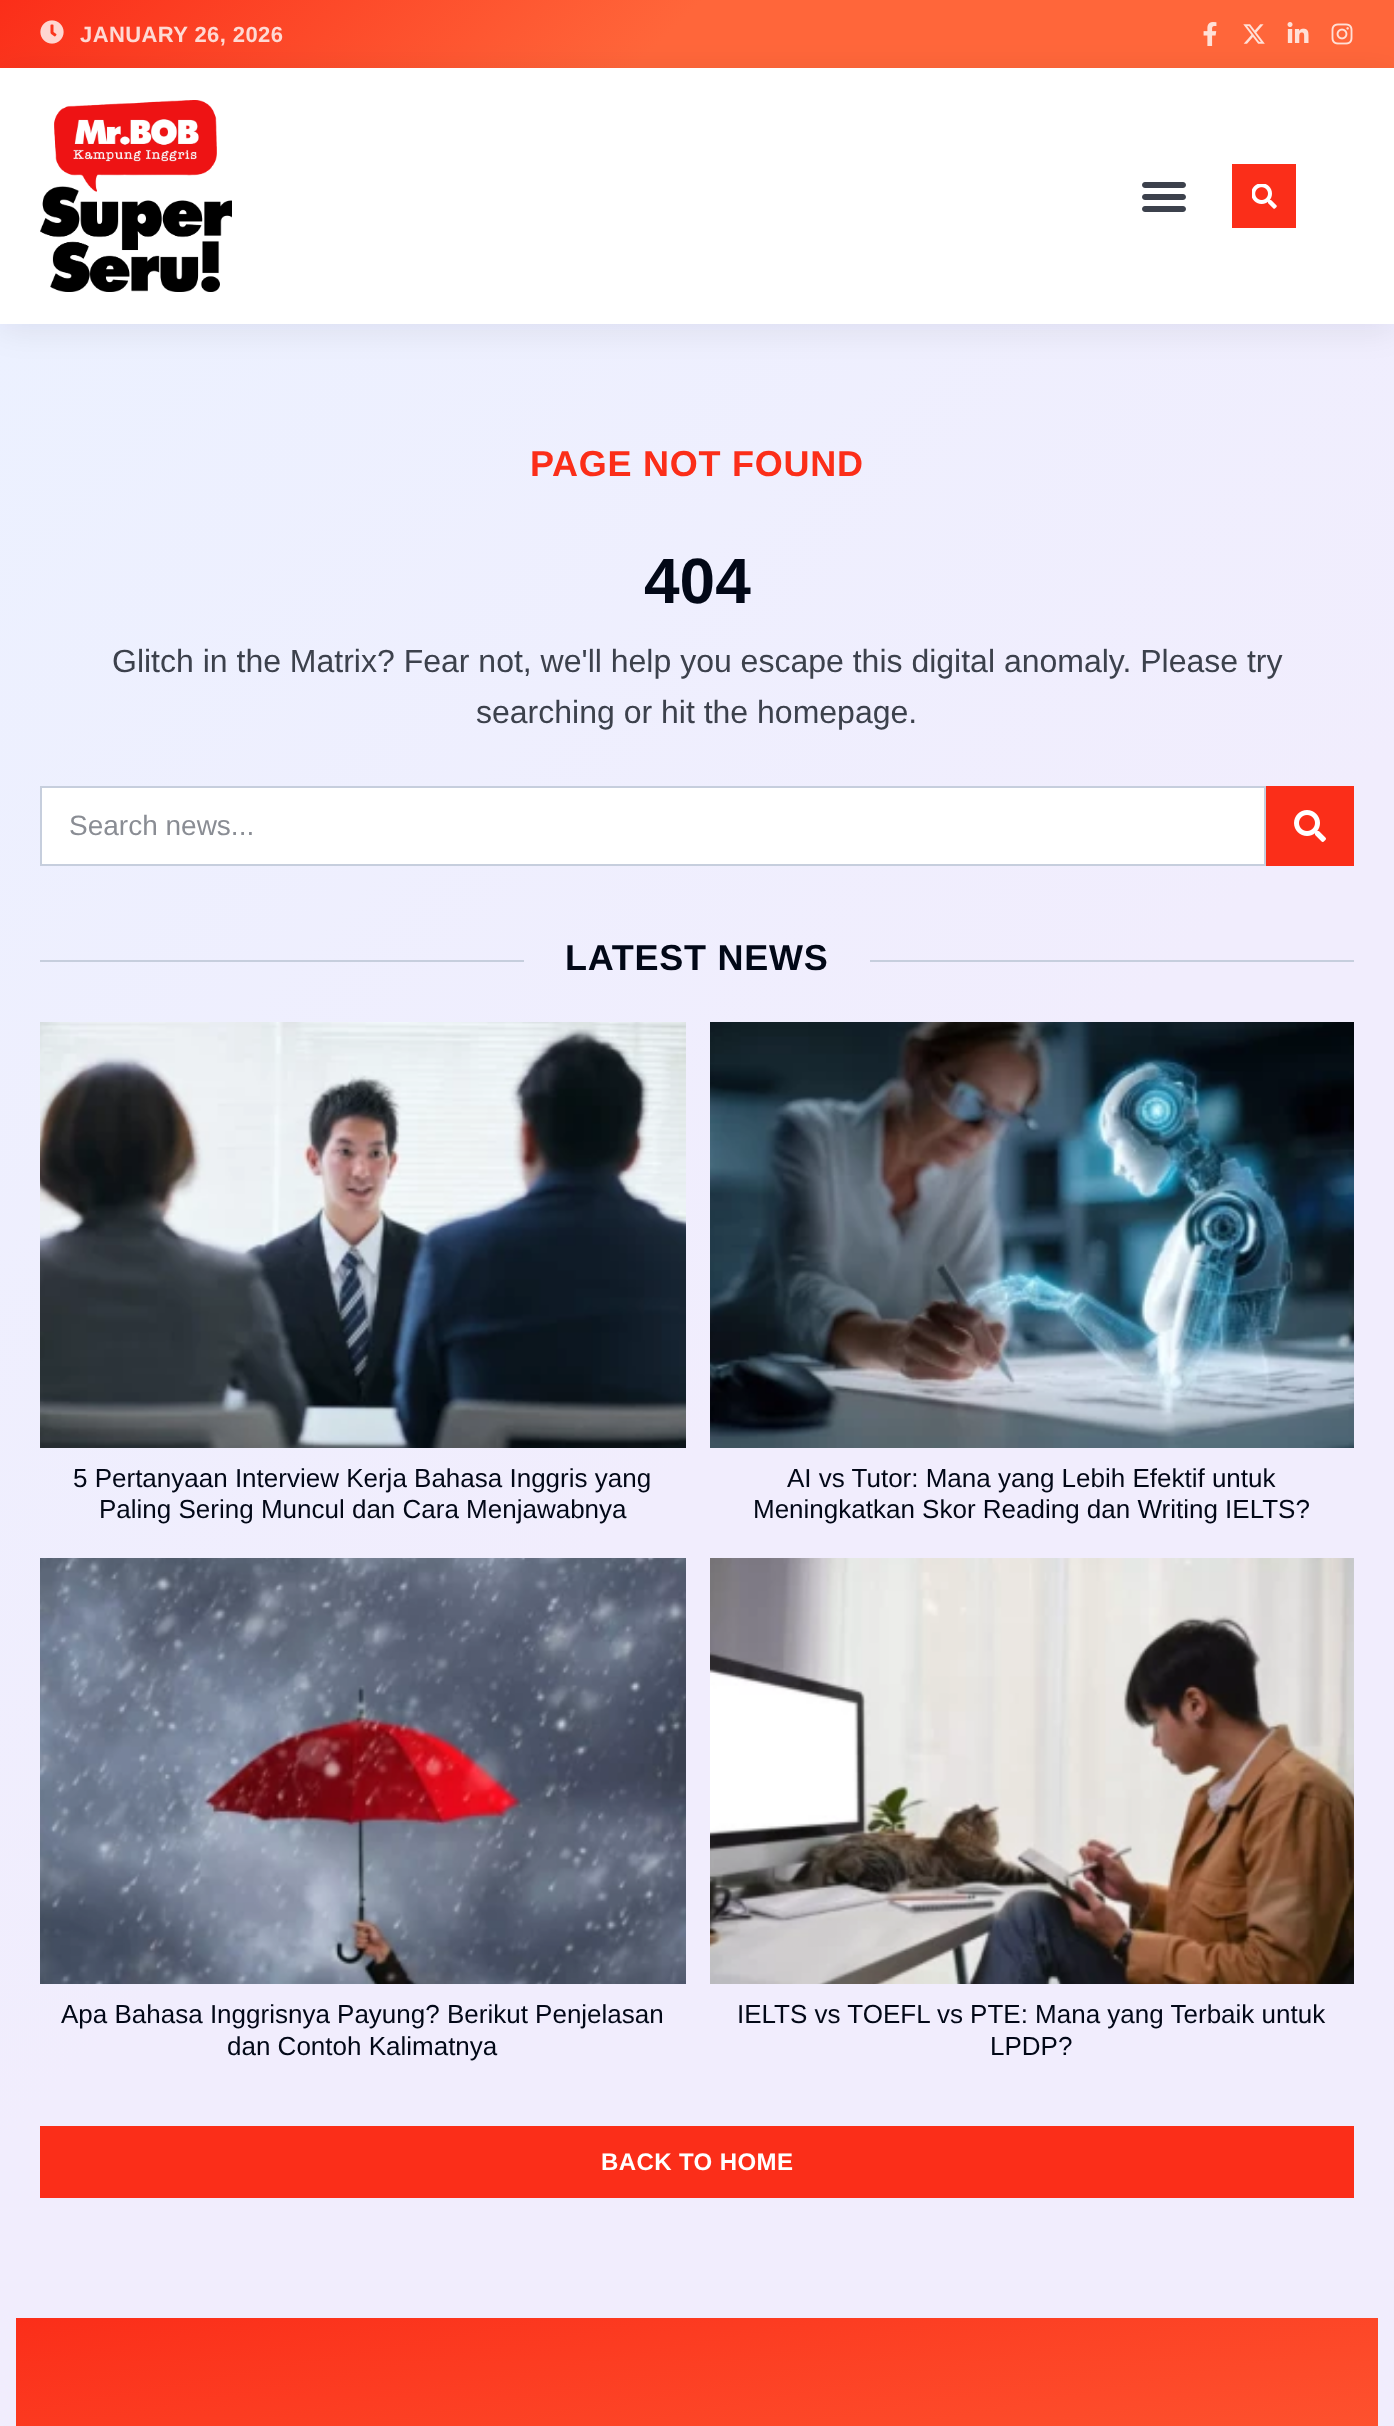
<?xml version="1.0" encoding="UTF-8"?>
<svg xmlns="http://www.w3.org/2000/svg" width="1394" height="2426">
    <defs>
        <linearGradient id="g1" gradientUnits="userSpaceOnUse" x1="331" y1="-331" x2="1063" y2="400"><stop offset="0" stop-color="#FB2E19"/><stop offset="0.48" stop-color="#FF663A"/></linearGradient>
        <linearGradient id="g2" gradientUnits="userSpaceOnUse" x1="-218" y1="542" x2="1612" y2="2372"><stop offset="0" stop-color="#ECF1FF"/><stop offset="0.5" stop-color="#F1EDFD"/></linearGradient>
        <clipPath id="clip1"><path d="M 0 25 H 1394 V 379 H 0 Z M 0 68 H 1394 V 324 H 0 Z" clip-rule="evenodd"/></clipPath>
        <filter id="blur1" x="-50%" y="-200%" width="200%" height="500%"><feGaussianBlur stdDeviation="16"/></filter>
        <linearGradient id="g3" gradientUnits="userSpaceOnUse" x1="623" y1="2211" x2="771" y2="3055"><stop offset="0" stop-color="#FB2E19"/><stop offset="0.63" stop-color="#FF663A"/></linearGradient>
    </defs>
    <rect width="100%" height="100%" fill="#FFFFFF"/>
    <rect x="0" y="0" width="1394" height="68" fill="url(#g1)"/>
    <image x="40" y="20" width="24" height="24" href="img_04.png"/>
    <image x="1203" y="22" width="14" height="24" href="img_05.png"/>
    <image x="1243" y="24" width="22" height="20" href="img_06.png"/>
    <image x="1287" y="22" width="22" height="21" href="img_07.png"/>
    <image x="1331" y="23" width="22" height="22" href="img_08.png"/>
    <rect x="0" y="324" width="1394" height="2102" fill="url(#g2)"/>
    <g clip-path="url(#clip1)">
        <rect x="0" y="74" width="1394" height="256" fill="#0F183F" fill-opacity="0.08" filter="url(#blur1)"/>
    </g>
    <image x="40" y="100" width="192" height="192" href="img_01.png"/>
    <image x="1142" y="182" width="44" height="30" href="img_02.png"/>
    <rect x="1232" y="164" width="64" height="64" fill="#FB2E19"/>
    <image x="1252" y="184" width="25" height="25" href="img_03.png"/>
    <text x="80" y="42" font-family="Liberation Sans" font-size="22" font-weight="700" letter-spacing="0.4" fill="#FED9D3">JANUARY 26, 2026</text>
    <text x="530" y="476" font-family="Liberation Sans" font-size="36" font-weight="700" letter-spacing="0.75" fill="#FB2E19">PAGE NOT FOUND</text>
    <text x="644" y="603" font-family="Liberation Sans" font-size="64" font-weight="700" fill="#020817">404</text>
    <text x="112" y="672" font-family="Liberation Sans" font-size="32" fill="#3C414C">Glitch in the Matrix? Fear not, we'll help you escape this digital anomaly. Please try</text>
    <text x="476" y="723" font-family="Liberation Sans" font-size="32" fill="#3C414C">searching or hit the homepage.</text>
    <rect x="41" y="787" width="1224" height="78" fill="#FFFFFF" stroke="#C6CEDD" stroke-width="2"/>
    <text x="69" y="835" font-family="Liberation Sans" font-size="28" fill="#8A8D94">Search news...</text>
    <rect x="1266" y="786" width="88" height="80" fill="#FB2E19"/>
    <image x="1294" y="810" width="32" height="32" href="img_09.png"/>
    <rect x="40" y="960" width="484" height="2" fill="#C6CEDD"/>
    <text x="565" y="970" font-family="Liberation Sans" font-size="36" font-weight="700" letter-spacing="0.75" fill="#020817">LATEST NEWS</text>
    <rect x="870" y="960" width="484" height="2" fill="#C6CEDD"/>
    <image x="40" y="1022" width="646" height="426" href="img_10.png"/>
    <text x="73" y="1487" font-family="Liberation Sans" font-size="26" fill="#020817">5 Pertanyaan Interview Kerja Bahasa Inggris yang</text>
    <text x="99" y="1518" font-family="Liberation Sans" font-size="26" fill="#020817">Paling Sering Muncul dan Cara Menjawabnya</text>
    <image x="710" y="1022" width="644" height="426" href="img_11.png"/>
    <text x="787" y="1487" font-family="Liberation Sans" font-size="26" fill="#020817">AI vs Tutor: Mana yang Lebih Efektif untuk</text>
    <text x="753" y="1518" font-family="Liberation Sans" font-size="26" fill="#020817">Meningkatkan Skor Reading dan Writing IELTS?</text>
    <image x="40" y="1558" width="646" height="426" href="img_12.png"/>
    <text x="61" y="2023" font-family="Liberation Sans" font-size="26" fill="#020817">Apa Bahasa Inggrisnya Payung? Berikut Penjelasan</text>
    <text x="227" y="2055" font-family="Liberation Sans" font-size="26" fill="#020817">dan Contoh Kalimatnya</text>
    <image x="710" y="1558" width="644" height="426" href="img_13.png"/>
    <text x="737" y="2023" font-family="Liberation Sans" font-size="26" fill="#020817">IELTS vs TOEFL vs PTE: Mana yang Terbaik untuk</text>
    <text x="990" y="2055" font-family="Liberation Sans" font-size="26" fill="#020817">LPDP?</text>
    <rect x="40" y="2126" width="1314" height="72" fill="#FB2E19"/>
    <text x="601" y="2170" font-family="Liberation Sans" font-size="24" font-weight="700" letter-spacing="0.4" fill="#FFFFFF">BACK TO HOME</text>
    <rect x="16" y="2318" width="1362" height="108" fill="url(#g3)"/>
</svg>
